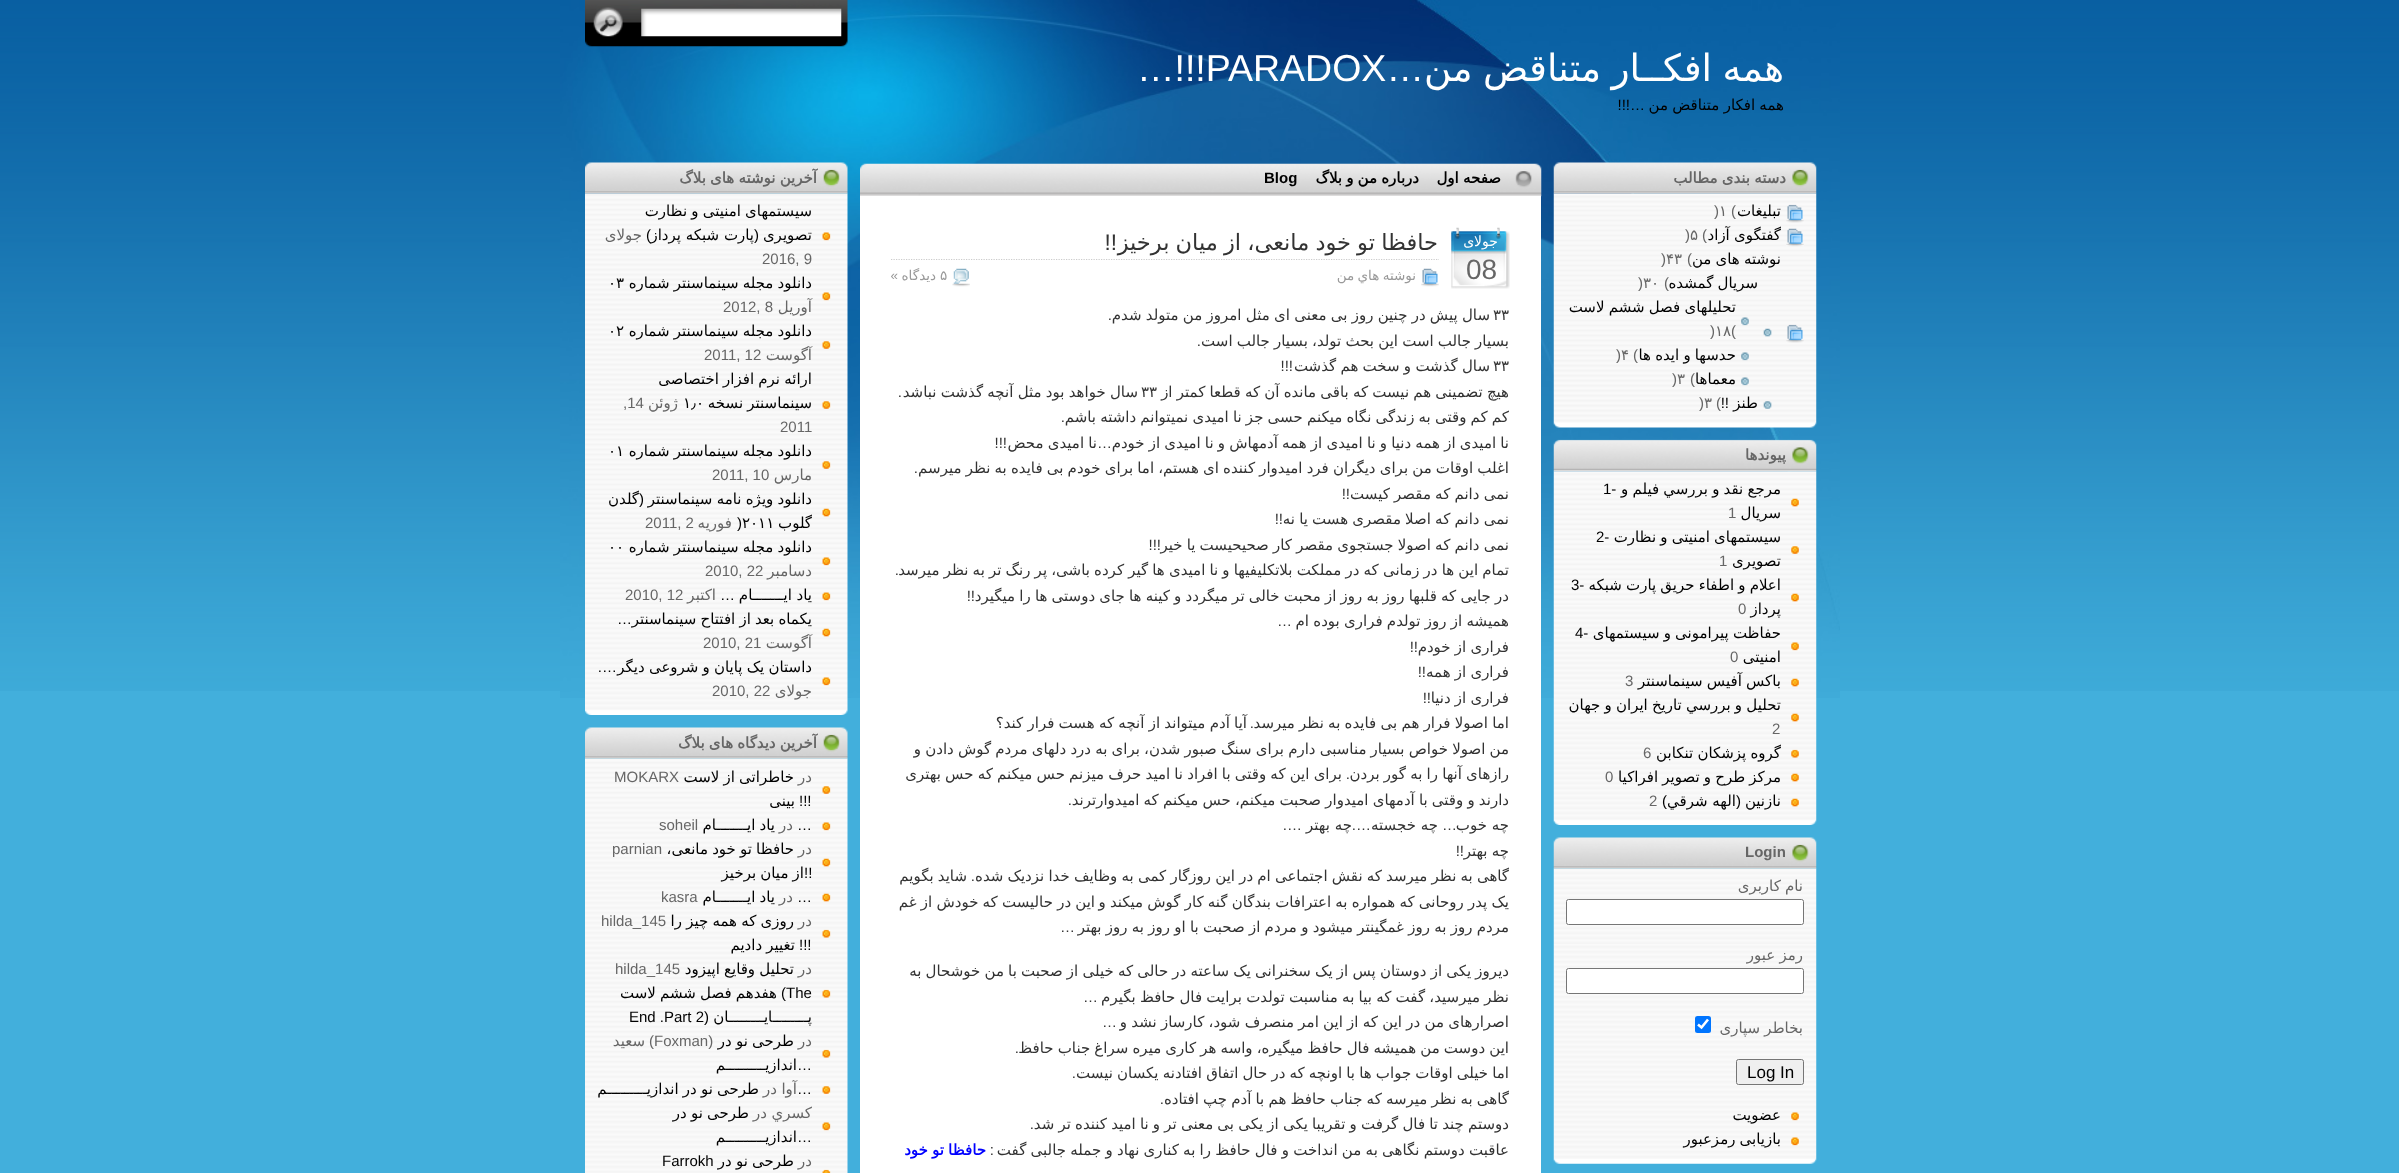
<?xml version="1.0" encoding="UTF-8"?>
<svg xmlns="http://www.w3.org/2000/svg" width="2399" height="1173">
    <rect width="100%" height="100%" fill="#42AFDC"/>
    <image x="0" y="0" width="2399" height="691" href="img_01.png"/>
    <image x="560" y="0" width="1280" height="698" href="img_02.png"/>
    <image x="585" y="0" width="263" height="47" href="img_03.png"/>
    <image x="641" y="8" width="201" height="29" href="img_04.png"/>
    <image x="593" y="7" width="30" height="30" href="img_05.png"/>
    <text x="1784" y="81" word-spacing="-1.5" font-family="DejaVu Sans" font-size="37.5" direction="rtl" fill="#FFFFFF">همه افكــار متناقض من</text>
    <text x="1424" y="81" font-family="Liberation Sans" font-size="37.5" direction="rtl" fill="#FFFFFF">…</text>
    <text x="1137" y="81" font-family="Liberation Sans" font-size="37.5" fill="#FFFFFF">…!!!PARADOX</text>
    <text x="1784" y="110" word-spacing="-0.5" font-family="DejaVu Sans" font-size="15" direction="rtl" fill="#000000">همه افكار متناقض من</text>
    <text x="1645" y="110" font-family="Liberation Sans" font-size="15" direction="rtl" fill="#000000">…!!!</text>
    <image x="1553" y="193" width="264" height="235" href="img_08.png"/>
    <image x="1553" y="162" width="264" height="32" href="img_06.png"/>
    <image x="1792" y="169" width="17" height="18" href="img_07.png"/>
    <text x="1786" y="183" word-spacing="-0.6" font-family="DejaVu Sans" font-size="15" font-weight="700" direction="rtl" fill="#666666">دسته بندی مطالب</text>
    <image x="1786" y="204" width="18" height="19" href="img_09.png"/>
    <text x="1781" y="216" font-family="DejaVu Sans" font-size="15" direction="rtl" fill="#000000">تبلیغات</text>
    <text x="1731" y="216" font-family="Liberation Sans" font-size="15" fill="#666666">(</text>
    <text x="1719" y="216" font-family="DejaVu Sans" font-size="15" fill="#666666">۱</text>
    <text x="1714" y="216" font-family="Liberation Sans" font-size="15" fill="#666666">)</text>
    <image x="1786" y="228" width="18" height="19" href="img_10.png"/>
    <text x="1781" y="240" word-spacing="-0.6" font-family="DejaVu Sans" font-size="15" direction="rtl" fill="#000000">گفتگوی آزاد</text>
    <text x="1702" y="240" font-family="Liberation Sans" font-size="15" fill="#666666">(</text>
    <text x="1690" y="240" font-family="DejaVu Sans" font-size="15" fill="#666666">۵</text>
    <text x="1685" y="240" font-family="Liberation Sans" font-size="15" fill="#666666">)</text>
    <image x="1786" y="324" width="18" height="19" href="img_11.png"/>
    <text x="1781" y="264" word-spacing="-0.6" font-family="DejaVu Sans" font-size="15" direction="rtl" fill="#000000">نوشته های من</text>
    <text x="1687" y="264" font-family="Liberation Sans" font-size="15" fill="#666666">(</text>
    <text x="1666" y="264" font-family="DejaVu Sans" font-size="15" fill="#666666">۴۳</text>
    <text x="1661" y="264" font-family="Liberation Sans" font-size="15" fill="#666666">)</text>
    <image x="1763" y="328" width="9" height="9" href="img_12.png"/>
    <text x="1758" y="288" word-spacing="-0.6" font-family="DejaVu Sans" font-size="15" direction="rtl" fill="#000000">سریال گمشده</text>
    <text x="1664" y="288" font-family="Liberation Sans" font-size="15" fill="#666666">(</text>
    <text x="1643" y="288" font-family="DejaVu Sans" font-size="15" fill="#666666">۳۰</text>
    <text x="1638" y="288" font-family="Liberation Sans" font-size="15" fill="#666666">)</text>
    <image x="1741" y="317" width="8" height="9" href="img_13.png"/>
    <text x="1736" y="312" word-spacing="-0.6" font-family="DejaVu Sans" font-size="15" direction="rtl" fill="#000000">تحلیلهای فصل ششم لاست</text>
    <text x="1731" y="336" font-family="Liberation Sans" font-size="15" fill="#666666">(</text>
    <text x="1715" y="336" font-family="DejaVu Sans" font-size="15" fill="#666666">۱۸</text>
    <text x="1710" y="336" font-family="Liberation Sans" font-size="15" fill="#666666">)</text>
    <image x="1741" y="352" width="8" height="9" href="img_14.png"/>
    <text x="1736" y="360" word-spacing="-0.6" font-family="DejaVu Sans" font-size="15" direction="rtl" fill="#000000">حدسها و ایده ها</text>
    <text x="1633" y="360" font-family="Liberation Sans" font-size="15" fill="#666666">(</text>
    <text x="1621" y="360" font-family="DejaVu Sans" font-size="15" fill="#666666">۴</text>
    <text x="1616" y="360" font-family="Liberation Sans" font-size="15" fill="#666666">)</text>
    <image x="1741" y="377" width="8" height="9" href="img_14.png"/>
    <text x="1736" y="384" font-family="DejaVu Sans" font-size="15" direction="rtl" fill="#000000">معماها</text>
    <text x="1690" y="384" font-family="Liberation Sans" font-size="15" fill="#666666">(</text>
    <text x="1677" y="384" font-family="DejaVu Sans" font-size="15" fill="#666666">۳</text>
    <text x="1672" y="384" font-family="Liberation Sans" font-size="15" fill="#666666">)</text>
    <image x="1763" y="401" width="9" height="8" href="img_15.png"/>
    <text x="1758" y="408" font-family="DejaVu Sans" font-size="15" direction="rtl" fill="#000000">طنز</text>
    <text x="1729" y="408" font-family="Liberation Sans" font-size="15" direction="rtl" fill="#000000">!!</text>
    <text x="1716" y="408" font-family="Liberation Sans" font-size="15" fill="#666666">(</text>
    <text x="1704" y="408" font-family="DejaVu Sans" font-size="15" fill="#666666">۳</text>
    <text x="1699" y="408" font-family="Liberation Sans" font-size="15" fill="#666666">)</text>
    <image x="1553" y="471" width="264" height="354" href="img_18.png"/>
    <image x="1553" y="439" width="264" height="33" href="img_16.png"/>
    <image x="1792" y="447" width="17" height="17" href="img_17.png"/>
    <text x="1786" y="460" font-family="DejaVu Sans" font-size="15" font-weight="700" direction="rtl" fill="#666666">پیوندها</text>
    <image x="1791" y="498" width="8" height="9" href="img_19.png"/>
    <text x="1781" y="494" word-spacing="-0.6" font-family="DejaVu Sans" font-size="15" direction="rtl" fill="#000000">مرجع نقد و بررسي فيلم و</text>
    <text x="1603" y="494" font-family="Liberation Sans" font-size="15" fill="#000000">1-</text>
    <text x="1781" y="518" font-family="DejaVu Sans" font-size="15" direction="rtl" fill="#000000">سريال</text>
    <text x="1728" y="518" font-family="Liberation Sans" font-size="15" fill="#666666">1</text>
    <image x="1791" y="546" width="8" height="8" href="img_20.png"/>
    <text x="1781" y="542" word-spacing="-0.6" font-family="DejaVu Sans" font-size="15" direction="rtl" fill="#000000">سیستمهای امنیتی و نظارت</text>
    <text x="1596" y="542" font-family="Liberation Sans" font-size="15" fill="#000000">2-</text>
    <text x="1781" y="566" font-family="DejaVu Sans" font-size="15" direction="rtl" fill="#000000">تصویری</text>
    <text x="1719" y="566" font-family="Liberation Sans" font-size="15" fill="#666666">1</text>
    <image x="1791" y="593" width="8" height="9" href="img_21.png"/>
    <text x="1781" y="590" word-spacing="-0.6" font-family="DejaVu Sans" font-size="15" direction="rtl" fill="#000000">اعلام و اطفاء حریق پارت شبکه</text>
    <text x="1571" y="590" font-family="Liberation Sans" font-size="15" fill="#000000">3-</text>
    <text x="1781" y="614" font-family="DejaVu Sans" font-size="15" direction="rtl" fill="#000000">پرداز</text>
    <text x="1738" y="614" font-family="Liberation Sans" font-size="15" fill="#666666">0</text>
    <image x="1791" y="642" width="8" height="9" href="img_22.png"/>
    <text x="1781" y="638" word-spacing="-0.6" font-family="DejaVu Sans" font-size="15" direction="rtl" fill="#000000">حفاظت پیرامونی و سیستمهای</text>
    <text x="1575" y="638" font-family="Liberation Sans" font-size="15" fill="#000000">4-</text>
    <text x="1781" y="662" font-family="DejaVu Sans" font-size="15" direction="rtl" fill="#000000">امنیتی</text>
    <text x="1730" y="662" font-family="Liberation Sans" font-size="15" fill="#666666">0</text>
    <image x="1791" y="678" width="8" height="9" href="img_23.png"/>
    <text x="1781" y="686" word-spacing="-0.6" font-family="DejaVu Sans" font-size="15" direction="rtl" fill="#000000">باکس آفیس سینماسنتر</text>
    <text x="1625" y="686" font-family="Liberation Sans" font-size="15" fill="#666666">3</text>
    <image x="1791" y="713" width="8" height="9" href="img_24.png"/>
    <text x="1781" y="710" word-spacing="-0.6" font-family="DejaVu Sans" font-size="15" direction="rtl" fill="#000000">تحليل و بررسي تاريخ ايران و جهان</text>
    <text x="1772" y="734" font-family="Liberation Sans" font-size="15" fill="#666666">2</text>
    <image x="1791" y="749" width="8" height="9" href="img_25.png"/>
    <text x="1781" y="758" word-spacing="-0.6" font-family="DejaVu Sans" font-size="15" direction="rtl" fill="#000000">گروه پزشکان تنکابن</text>
    <text x="1643" y="758" font-family="Liberation Sans" font-size="15" fill="#666666">6</text>
    <image x="1791" y="773" width="8" height="9" href="img_24.png"/>
    <text x="1781" y="782" word-spacing="-0.6" font-family="DejaVu Sans" font-size="15" direction="rtl" fill="#000000">مرکز طرح و تصویر افراکیا</text>
    <text x="1605" y="782" font-family="Liberation Sans" font-size="15" fill="#666666">0</text>
    <image x="1791" y="798" width="8" height="9" href="img_24.png"/>
    <text x="1781" y="806" font-family="DejaVu Sans" font-size="15" direction="rtl" fill="#000000">نازنين</text>
    <text x="1741" y="806" font-family="Liberation Sans" font-size="15" direction="rtl" fill="#000000">(</text>
    <text x="1736" y="806" font-family="DejaVu Sans" font-size="15" direction="rtl" fill="#000000">الهه شرقي</text>
    <text x="1667" y="806" font-family="Liberation Sans" font-size="15" direction="rtl" fill="#000000">)</text>
    <text x="1649" y="806" font-family="Liberation Sans" font-size="15" fill="#666666">2</text>
    <image x="1553" y="868" width="264" height="296" href="img_27.png"/>
    <image x="1553" y="837" width="264" height="32" href="img_26.png"/>
    <image x="1792" y="844" width="17" height="18" href="img_07.png"/>
    <text x="1745" y="857" font-family="Liberation Sans" font-size="15" font-weight="700" fill="#666666">Login</text>
    <text x="1803" y="891" word-spacing="-0.6" font-family="DejaVu Sans" font-size="15" direction="rtl" fill="#666666">نام کاربری</text>
    <rect x="1566.5" y="899.5" width="237" height="25" rx="2" fill="#FFFFFF" stroke="#767676"/>
    <text x="1803" y="960" word-spacing="-0.6" font-family="DejaVu Sans" font-size="15" direction="rtl" fill="#666666">رمز عبور</text>
    <rect x="1566.5" y="968.5" width="237" height="25" rx="2" fill="#FFFFFF" stroke="#767676"/>
    <text x="1803" y="1033" word-spacing="-0.6" font-family="DejaVu Sans" font-size="15" direction="rtl" fill="#666666">بخاطر سپاری</text>
    <rect x="1695" y="1016" width="16" height="17" rx="2.5" fill="#0075FF"/>
    <path d="M 1698 1024.5 L 1701.5 1027.5 L 1708 1019.5" fill="none" stroke="#FFFFFF" stroke-width="2.6"/>
    <rect x="1736.5" y="1059.5" width="67" height="25" rx="2" fill="#EFEFEF" stroke="#767676"/>
    <text x="1747" y="1078" font-family="Liberation Sans" font-size="17" fill="#000000">Log In</text>
    <image x="1791" y="1112" width="8" height="9" href="img_28.png"/>
    <text x="1781" y="1120" font-family="DejaVu Sans" font-size="15" direction="rtl" fill="#000000">عضویت</text>
    <image x="1791" y="1137" width="8" height="9" href="img_28.png"/>
    <text x="1781" y="1144" word-spacing="-0.6" font-family="DejaVu Sans" font-size="15" direction="rtl" fill="#000000">بازیابی رمزعبور</text>
    <image x="860" y="163" width="682" height="34" href="img_29.png"/>
    <text x="1501" y="183" word-spacing="-0.6" font-family="DejaVu Sans" font-size="15" font-weight="700" direction="rtl" fill="#000000">صفحه اول</text>
    <text x="1419" y="183" word-spacing="-0.6" font-family="DejaVu Sans" font-size="15" font-weight="700" direction="rtl" fill="#000000">درباره من و بلاگ</text>
    <text x="1264" y="183" font-family="Liberation Sans" font-size="15" font-weight="700" fill="#000000">Blog</text>
    <rect x="860" y="196" width="681" height="977" fill="#FFFFFF"/>
    <image x="1451" y="227" width="59" height="62" href="img_30.png"/>
    <text x="1498" y="246" font-family="DejaVu Sans" font-size="14" direction="rtl" fill="#FFFFFF">جولای</text>
    <text x="1466" y="279" font-family="Liberation Sans" font-size="28" fill="#666666">08</text>
    <path d="M 891 259.5 H 1439" fill="none" stroke="#CCCCCC" stroke-width="1.2" stroke-dasharray="1.25 1.25"/>
    <text x="1438" y="250" word-spacing="-1" font-family="DejaVu Sans" font-size="22.5" direction="rtl" fill="#333333">حافظا تو خود مانعی، از میان برخیز</text>
    <text x="1117" y="250" font-family="Liberation Sans" font-size="22.5" direction="rtl" fill="#333333">!!</text>
    <image x="1421" y="268" width="18" height="19" href="img_31.png"/>
    <text x="1416" y="280" word-spacing="-1" font-family="DejaVu Sans" font-size="13.5" direction="rtl" fill="#999999">نوشته هاي من</text>
    <image x="952" y="268" width="18" height="19" href="img_32.png"/>
    <text x="940" y="280" font-family="DejaVu Sans" font-size="13.5" fill="#999999">۵</text>
    <text x="936" y="280" font-family="DejaVu Sans" font-size="13.5" direction="rtl" fill="#999999">دیدگاه</text>
    <text x="898" y="280" font-family="Liberation Sans" font-size="13.5" direction="rtl" fill="#999999">»</text>
    <text x="1493" y="320" font-family="DejaVu Sans" font-size="15" fill="#333333">۳۳</text>
    <text x="1490" y="320" word-spacing="-0.5" font-family="DejaVu Sans" font-size="15" direction="rtl" fill="#333333">سال پیش در چنین روز بی معنی ای مثل امروز من متولد شدم</text>
    <text x="1112" y="320" font-family="Liberation Sans" font-size="15" direction="rtl" fill="#333333">.</text>
    <text x="1509" y="346" word-spacing="-0.6" font-family="DejaVu Sans" font-size="15" direction="rtl" fill="#333333">بسیار جالب است این بحث تولد، بسیار جالب است</text>
    <text x="1201" y="346" font-family="Liberation Sans" font-size="15" direction="rtl" fill="#333333">.</text>
    <text x="1493" y="371" font-family="DejaVu Sans" font-size="15" fill="#333333">۳۳</text>
    <text x="1490" y="371" word-spacing="-0.5" font-family="DejaVu Sans" font-size="15" direction="rtl" fill="#333333">سال گذشت و سخت هم گذشت</text>
    <text x="1293" y="371" font-family="Liberation Sans" font-size="15" direction="rtl" fill="#333333">!!!</text>
    <text x="1509" y="397" word-spacing="-0.6" font-family="DejaVu Sans" font-size="15" direction="rtl" fill="#333333">هیچ تضمینی هم نیست که باقی مانده آن که قطعا کمتر از</text>
    <text x="1141" y="397" font-family="DejaVu Sans" font-size="15" fill="#333333">۳۳</text>
    <text x="1138" y="397" word-spacing="-0.5" font-family="DejaVu Sans" font-size="15" direction="rtl" fill="#333333">سال خواهد بود مثل آنچه گذشت نباشد</text>
    <text x="902" y="397" font-family="Liberation Sans" font-size="15" direction="rtl" fill="#333333">.</text>
    <text x="1509" y="422" word-spacing="-0.6" font-family="DejaVu Sans" font-size="15" direction="rtl" fill="#333333">کم کم وقتی به زندگی نگاه میکنم حسی جز نا امیدی نمیتوانم داشته باشم</text>
    <text x="1065" y="422" font-family="Liberation Sans" font-size="15" direction="rtl" fill="#333333">.</text>
    <text x="1509" y="448" word-spacing="-0.6" font-family="DejaVu Sans" font-size="15" direction="rtl" fill="#333333">نا امیدی از همه دنیا و نا امیدی از همه آدمهاش و نا امیدی از خودم</text>
    <text x="1112" y="448" font-family="Liberation Sans" font-size="15" direction="rtl" fill="#333333">…</text>
    <text x="1097" y="448" word-spacing="-0.6" font-family="DejaVu Sans" font-size="15" direction="rtl" fill="#333333">نا امیدی محض</text>
    <text x="1007" y="448" font-family="Liberation Sans" font-size="15" direction="rtl" fill="#333333">!!!</text>
    <text x="1509" y="473" word-spacing="-0.6" font-family="DejaVu Sans" font-size="15" direction="rtl" fill="#333333">اغلب اوقات من برای دیگران فرد امیدوار کننده ای هستم، اما برای خودم بی فایده به نظر میرسم</text>
    <text x="918" y="473" font-family="Liberation Sans" font-size="15" direction="rtl" fill="#333333">.</text>
    <text x="1509" y="499" word-spacing="-0.6" font-family="DejaVu Sans" font-size="15" direction="rtl" fill="#333333">نمی دانم که مقصر کیست</text>
    <text x="1350" y="499" font-family="Liberation Sans" font-size="15" direction="rtl" fill="#333333">!!</text>
    <text x="1509" y="524" word-spacing="-0.6" font-family="DejaVu Sans" font-size="15" direction="rtl" fill="#333333">نمی دانم که اصلا مقصری هست یا نه</text>
    <text x="1283" y="524" font-family="Liberation Sans" font-size="15" direction="rtl" fill="#333333">!!</text>
    <text x="1509" y="550" word-spacing="-0.6" font-family="DejaVu Sans" font-size="15" direction="rtl" fill="#333333">نمی دانم که اصولا جستجوی مقصر کار صحیحیست یا خیر</text>
    <text x="1161" y="550" font-family="Liberation Sans" font-size="15" direction="rtl" fill="#333333">!!!</text>
    <text x="1509" y="575" word-spacing="-0.6" font-family="DejaVu Sans" font-size="15" direction="rtl" fill="#333333">تمام این ها در زمانی که در مملکت بلاتکلیفیها و نا امیدی ها گیر کرده باشی، پر رنگ تر به نظر میرسد</text>
    <text x="899" y="575" font-family="Liberation Sans" font-size="15" direction="rtl" fill="#333333">.</text>
    <text x="1509" y="601" word-spacing="-0.6" font-family="DejaVu Sans" font-size="15" direction="rtl" fill="#333333">در جایی که قلبها روز به روز از محبت خالی تر میگردد و کینه ها جای دوستی ها را میگیرد</text>
    <text x="975" y="601" font-family="Liberation Sans" font-size="15" direction="rtl" fill="#333333">!!</text>
    <text x="1509" y="626" word-spacing="-0.5" font-family="DejaVu Sans" font-size="15" direction="rtl" fill="#333333">همیشه از روز تولدم فراری بوده ام</text>
    <text x="1292" y="626" font-family="Liberation Sans" font-size="15" direction="rtl" fill="#333333">…</text>
    <text x="1509" y="652" word-spacing="-0.6" font-family="DejaVu Sans" font-size="15" direction="rtl" fill="#333333">فراری از خودم</text>
    <text x="1418" y="652" font-family="Liberation Sans" font-size="15" direction="rtl" fill="#333333">!!</text>
    <text x="1509" y="677" word-spacing="-0.6" font-family="DejaVu Sans" font-size="15" direction="rtl" fill="#333333">فراری از همه</text>
    <text x="1426" y="677" font-family="Liberation Sans" font-size="15" direction="rtl" fill="#333333">!!</text>
    <text x="1509" y="703" word-spacing="-0.6" font-family="DejaVu Sans" font-size="15" direction="rtl" fill="#333333">فراری از دنیا</text>
    <text x="1431" y="703" font-family="Liberation Sans" font-size="15" direction="rtl" fill="#333333">!!</text>
    <text x="1509" y="728" word-spacing="-0.5" font-family="DejaVu Sans" font-size="15" direction="rtl" fill="#333333">اما اصولا فرار هم بی فایده به نظر میرسد</text>
    <text x="1254" y="728" font-family="Liberation Sans" font-size="15" direction="rtl" fill="#333333">.</text>
    <text x="1247" y="728" word-spacing="-0.5" font-family="DejaVu Sans" font-size="15" direction="rtl" fill="#333333">آیا آدم میتواند از آنچه که هست فرار کند؟</text>
    <text font-family="DejaVu Sans" font-size="15" direction="rtl" fill="#333333">
        <tspan x="1509" y="754" word-spacing="-0.6">من اصولا خواص بسیار مناسبی دارم برای سنگ صبور شدن، برای به درد دلهای مردم گوش دادن و</tspan>
        <tspan x="1509" y="779" word-spacing="-0.6">رازهای آنها را به گور بردن</tspan>
    </text>
    <text x="1350" y="779" font-family="Liberation Sans" font-size="15" direction="rtl" fill="#333333">.</text>
    <text x="1342" y="779" word-spacing="-0.6" font-family="DejaVu Sans" font-size="15" direction="rtl" fill="#333333">برای این که وقتی با افراد نا امید حرف میزنم حس میکنم که حس بهتری</text>
    <text x="1509" y="805" word-spacing="-0.6" font-family="DejaVu Sans" font-size="15" direction="rtl" fill="#333333">دارند و وقتی با آدمهای امیدوار صحبت میکنم، حس میکنم که امیدوارترند</text>
    <text x="1072" y="805" font-family="Liberation Sans" font-size="15" direction="rtl" fill="#333333">.</text>
    <text x="1509" y="830" font-family="DejaVu Sans" font-size="15" direction="rtl" fill="#333333">چه خوب</text>
    <text x="1457" y="830" font-family="Liberation Sans" font-size="15" direction="rtl" fill="#333333">…</text>
    <text x="1438" y="830" font-family="DejaVu Sans" font-size="15" direction="rtl" fill="#333333">چه خجسته</text>
    <text x="1371" y="830" font-family="Liberation Sans" font-size="15" direction="rtl" fill="#333333">….</text>
    <text x="1352" y="830" font-family="DejaVu Sans" font-size="15" direction="rtl" fill="#333333">چه بهتر</text>
    <text x="1302" y="830" font-family="Liberation Sans" font-size="15" direction="rtl" fill="#333333">….</text>
    <text x="1509" y="856" word-spacing="-0.6" font-family="DejaVu Sans" font-size="15" direction="rtl" fill="#333333">چه بهتر</text>
    <text x="1464" y="856" font-family="Liberation Sans" font-size="15" direction="rtl" fill="#333333">!!</text>
    <text x="1509" y="881" word-spacing="-0.6" font-family="DejaVu Sans" font-size="15" direction="rtl" fill="#333333">گاهی به نظر میرسد که نقش اجتماعی ام در این روزگار کمی به وظایف خدا نزدیک شده</text>
    <text x="975" y="881" font-family="Liberation Sans" font-size="15" direction="rtl" fill="#333333">.</text>
    <text x="967" y="881" word-spacing="-0.6" font-family="DejaVu Sans" font-size="15" direction="rtl" fill="#333333">شاید بگویم</text>
    <text x="1509" y="907" word-spacing="-0.6" font-family="DejaVu Sans" font-size="15" direction="rtl" fill="#333333">یک پدر روحانی که همواره به اعترافات بندگان گنه کار گوش میکند و</text>
    <text x="1095" y="907" word-spacing="-0.6" font-family="DejaVu Sans" font-size="15" direction="rtl" fill="#333333">این در حالیست که خودش از غم</text>
    <text x="1509" y="932" word-spacing="-0.5" font-family="DejaVu Sans" font-size="15" direction="rtl" fill="#333333">مردم روز به روز غمگینتر میشود و مردم از صحبت با او روز به روز بهتر</text>
    <text x="1075" y="932" font-family="Liberation Sans" font-size="15" direction="rtl" fill="#333333">…</text>
    <text font-family="DejaVu Sans" font-size="15" direction="rtl" fill="#333333">
        <tspan x="1509" y="976" word-spacing="-0.6">دیروز یکی از دوستان پس از یک سخنرانی یک ساعته در حالی که خیلی از صحبت با من خوشحال به</tspan>
        <tspan x="1509" y="1002" word-spacing="-0.5">نظر میرسید، گفت که بیا به مناسبت تولدت برایت فال حافظ بگیرم</tspan>
    </text>
    <text x="1098" y="1002" font-family="Liberation Sans" font-size="15" direction="rtl" fill="#333333">…</text>
    <text x="1509" y="1027" word-spacing="-0.5" font-family="DejaVu Sans" font-size="15" direction="rtl" fill="#333333">اصرارهای من در این که از این امر منصرف شود، کارساز نشد و</text>
    <text x="1117" y="1027" font-family="Liberation Sans" font-size="15" direction="rtl" fill="#333333">…</text>
    <text x="1509" y="1053" word-spacing="-0.6" font-family="DejaVu Sans" font-size="15" direction="rtl" fill="#333333">این دوست من همیشه فال حافظ میگیره، واسه هر کاری میره سراغ جناب حافظ</text>
    <text x="1019" y="1053" font-family="Liberation Sans" font-size="15" direction="rtl" fill="#333333">.</text>
    <text x="1509" y="1078" word-spacing="-0.6" font-family="DejaVu Sans" font-size="15" direction="rtl" fill="#333333">اما خیلی اوقات جواب ها با اونچه که در حال اتفاق افتادنه یکسان نیست</text>
    <text x="1076" y="1078" font-family="Liberation Sans" font-size="15" direction="rtl" fill="#333333">.</text>
    <text x="1509" y="1104" word-spacing="-0.6" font-family="DejaVu Sans" font-size="15" direction="rtl" fill="#333333">گاهی به نظر میرسه که جناب حافظ هم با آدم چپ افتاده</text>
    <text x="1164" y="1104" font-family="Liberation Sans" font-size="15" direction="rtl" fill="#333333">.</text>
    <text x="1509" y="1129" word-spacing="-0.6" font-family="DejaVu Sans" font-size="15" direction="rtl" fill="#333333">دوستم چند تا فال گرفت و تقریبا یکی از یکی بی معنی تر و نا امید کننده تر شد</text>
    <text x="1034" y="1129" font-family="Liberation Sans" font-size="15" direction="rtl" fill="#333333">.</text>
    <text x="1509" y="1155" word-spacing="-0.5" font-family="DejaVu Sans" font-size="15" direction="rtl" fill="#333333">عاقبت دوستم نگاهی به من انداخت و فال حافظ را به کناری نهاد و جمله جالبی گفت</text>
    <text x="994" y="1155" font-family="Liberation Sans" font-size="15" direction="rtl" fill="#333333">:</text>
    <text x="986" y="1155" word-spacing="-0.6" font-family="DejaVu Sans" font-size="15" font-weight="700" direction="rtl" fill="#0000FF">حافظا تو خود</text>
    <image x="585" y="193" width="263" height="522" href="img_35.png"/>
    <image x="585" y="162" width="263" height="32" href="img_33.png"/>
    <image x="823" y="169" width="17" height="18" href="img_34.png"/>
    <text x="817" y="183" word-spacing="-0.6" font-family="DejaVu Sans" font-size="15" font-weight="700" direction="rtl" fill="#666666">آخرین نوشته های بلاگ</text>
    <image x="822" y="232" width="9" height="9" href="img_36.png"/>
    <text font-family="DejaVu Sans" font-size="15" direction="rtl" fill="#000000">
        <tspan x="812" y="216" word-spacing="-0.6">سیستمهای امنیتی و نظارت</tspan>
        <tspan x="812" y="240">تصویری</tspan>
    </text>
    <text x="759" y="240" font-family="Liberation Sans" font-size="15" direction="rtl" fill="#000000">(</text>
    <text x="651" y="240" font-family="Liberation Sans" font-size="15" direction="rtl" fill="#000000">)</text>
    <text x="754" y="240" font-family="DejaVu Sans" font-size="15" direction="rtl" fill="#000000">پارت شبکه پرداز</text>
    <text x="642" y="240" font-family="DejaVu Sans" font-size="15" direction="rtl" fill="#666666">جولای</text>
    <text x="762" y="264" font-family="Liberation Sans" font-size="15" fill="#666666">2016, 9</text>
    <image x="822" y="292" width="9" height="9" href="img_37.png"/>
    <text x="812" y="288" word-spacing="-0.6" font-family="DejaVu Sans" font-size="15" direction="rtl" fill="#000000">دانلود مجله سینماسنتر شماره</text>
    <text x="608" y="288" font-family="DejaVu Sans" font-size="15" fill="#000000">۰۳</text>
    <text x="812" y="312" font-family="DejaVu Sans" font-size="15" direction="rtl" fill="#666666">آوریل</text>
    <text x="723" y="312" font-family="Liberation Sans" font-size="15" fill="#666666">2012, 8</text>
    <image x="822" y="341" width="9" height="8" href="img_38.png"/>
    <text x="812" y="336" word-spacing="-0.6" font-family="DejaVu Sans" font-size="15" direction="rtl" fill="#000000">دانلود مجله سینماسنتر شماره</text>
    <text x="608" y="336" font-family="DejaVu Sans" font-size="15" fill="#000000">۰۲</text>
    <text x="812" y="360" font-family="DejaVu Sans" font-size="15" direction="rtl" fill="#666666">آگوست</text>
    <text x="704" y="360" font-family="Liberation Sans" font-size="15" fill="#666666">2011, 12</text>
    <image x="822" y="401" width="9" height="8" href="img_38.png"/>
    <text font-family="DejaVu Sans" font-size="15" direction="rtl" fill="#000000">
        <tspan x="812" y="384" word-spacing="-0.6">ارائه نرم افزار اختصاصی</tspan>
        <tspan x="812" y="408" word-spacing="-0.6">سینماسنتر نسخه</tspan>
    </text>
    <text x="683" y="408" font-family="DejaVu Sans" font-size="15" fill="#000000">۱٫۰</text>
    <text x="678" y="408" font-family="DejaVu Sans" font-size="15" direction="rtl" fill="#666666">ژوئن</text>
    <text x="623" y="408" font-family="Liberation Sans" font-size="15" fill="#666666">,14</text>
    <text x="780" y="432" font-family="Liberation Sans" font-size="15" fill="#666666">2011</text>
    <image x="822" y="461" width="9" height="8" href="img_39.png"/>
    <text x="812" y="456" word-spacing="-0.6" font-family="DejaVu Sans" font-size="15" direction="rtl" fill="#000000">دانلود مجله سینماسنتر شماره</text>
    <text x="608" y="456" font-family="DejaVu Sans" font-size="15" fill="#000000">۰۱</text>
    <text x="812" y="480" font-family="DejaVu Sans" font-size="15" direction="rtl" fill="#666666">مارس</text>
    <text x="712" y="480" font-family="Liberation Sans" font-size="15" fill="#666666">2011, 10</text>
    <image x="822" y="508" width="9" height="9" href="img_40.png"/>
    <text x="812" y="504" word-spacing="-0.5" font-family="DejaVu Sans" font-size="15" direction="rtl" fill="#000000">دانلود ویژه نامه سینماسنتر</text>
    <text x="644" y="504" font-family="Liberation Sans" font-size="15" direction="rtl" fill="#000000">(</text>
    <text x="639" y="504" font-family="DejaVu Sans" font-size="15" direction="rtl" fill="#000000">گلدن</text>
    <text x="812" y="528" font-family="DejaVu Sans" font-size="15" direction="rtl" fill="#000000">گلوب</text>
    <text x="742" y="528" font-family="DejaVu Sans" font-size="15" fill="#000000">۲۰۱۱</text>
    <text x="737" y="528" font-family="Liberation Sans" font-size="15" fill="#000000">)</text>
    <text x="732" y="528" font-family="DejaVu Sans" font-size="15" direction="rtl" fill="#666666">فوریه</text>
    <text x="645" y="528" font-family="Liberation Sans" font-size="15" fill="#666666">2011, 2</text>
    <image x="822" y="557" width="9" height="9" href="img_41.png"/>
    <text x="812" y="552" word-spacing="-0.6" font-family="DejaVu Sans" font-size="15" direction="rtl" fill="#000000">دانلود مجله سینماسنتر شماره</text>
    <text x="608" y="552" font-family="DejaVu Sans" font-size="15" fill="#000000">۰۰</text>
    <text x="812" y="576" font-family="DejaVu Sans" font-size="15" direction="rtl" fill="#666666">دسامبر</text>
    <text x="705" y="576" font-family="Liberation Sans" font-size="15" fill="#666666">2010, 22</text>
    <image x="822" y="592" width="9" height="9" href="img_42.png"/>
    <text x="812" y="600" font-family="DejaVu Sans" font-size="15" direction="rtl" fill="#000000">یاد ایـــــــام</text>
    <text x="735" y="600" font-family="Liberation Sans" font-size="15" direction="rtl" fill="#000000">…</text>
    <text x="716" y="600" font-family="DejaVu Sans" font-size="15" direction="rtl" fill="#666666">اکتبر</text>
    <text x="625" y="600" font-family="Liberation Sans" font-size="15" fill="#666666">2010, 12</text>
    <image x="822" y="628" width="9" height="9" href="img_43.png"/>
    <text x="812" y="624" word-spacing="-0.6" font-family="DejaVu Sans" font-size="15" direction="rtl" fill="#000000">یکماه بعد از افتتاح سینماسنتر</text>
    <text x="632" y="624" font-family="Liberation Sans" font-size="15" direction="rtl" fill="#000000">…</text>
    <text x="812" y="648" font-family="DejaVu Sans" font-size="15" direction="rtl" fill="#666666">آگوست</text>
    <text x="703" y="648" font-family="Liberation Sans" font-size="15" fill="#666666">2010, 21</text>
    <image x="822" y="677" width="9" height="9" href="img_44.png"/>
    <text x="812" y="672" word-spacing="-0.6" font-family="DejaVu Sans" font-size="15" direction="rtl" fill="#000000">داستان یک پایان و شروعی دیگر</text>
    <text x="617" y="672" font-family="Liberation Sans" font-size="15" direction="rtl" fill="#000000">….</text>
    <text x="812" y="696" font-family="DejaVu Sans" font-size="15" direction="rtl" fill="#666666">جولای</text>
    <text x="712" y="696" font-family="Liberation Sans" font-size="15" fill="#666666">2010, 22</text>
    <image x="585" y="758" width="263" height="415" href="img_46.png"/>
    <image x="585" y="727" width="263" height="32" href="img_45.png"/>
    <image x="823" y="734" width="17" height="18" href="img_34.png"/>
    <text x="817" y="748" word-spacing="-0.6" font-family="DejaVu Sans" font-size="15" font-weight="700" direction="rtl" fill="#666666">آخرین دیدگاه های بلاگ</text>
    <image x="822" y="786" width="9" height="8" href="img_47.png"/>
    <text x="812" y="782" font-family="DejaVu Sans" font-size="15" direction="rtl" fill="#666666">در</text>
    <text x="794" y="782" word-spacing="-0.6" font-family="DejaVu Sans" font-size="15" direction="rtl" fill="#000000">خاطراتی از لاست</text>
    <text x="614" y="782" font-family="Liberation Sans" font-size="15" fill="#666666">MOKARX</text>
    <text x="799" y="806" font-family="Liberation Sans" font-size="15" fill="#000000">!!!</text>
    <text x="795" y="806" font-family="DejaVu Sans" font-size="15" direction="rtl" fill="#000000">بینی</text>
    <image x="822" y="822" width="9" height="9" href="img_48.png"/>
    <text x="797" y="830" font-family="Liberation Sans" font-size="15" fill="#000000">…</text>
    <text x="793" y="830" font-family="DejaVu Sans" font-size="15" direction="rtl" fill="#666666">در</text>
    <text x="775" y="830" word-spacing="-0.6" font-family="DejaVu Sans" font-size="15" direction="rtl" fill="#000000">یاد ایـــــــام</text>
    <text x="659" y="830" font-family="Liberation Sans" font-size="15" fill="#666666">soheil</text>
    <image x="822" y="858" width="9" height="9" href="img_49.png"/>
    <text x="812" y="854" font-family="DejaVu Sans" font-size="15" direction="rtl" fill="#666666">در</text>
    <text x="794" y="854" word-spacing="-0.6" font-family="DejaVu Sans" font-size="15" direction="rtl" fill="#000000">حافظا تو خود مانعی،</text>
    <text x="612" y="854" font-family="Liberation Sans" font-size="15" fill="#666666">parnian</text>
    <text x="804" y="878" font-family="Liberation Sans" font-size="15" fill="#000000">!!</text>
    <text x="804" y="878" word-spacing="-0.6" font-family="DejaVu Sans" font-size="15" direction="rtl" fill="#000000">از میان برخیز</text>
    <image x="822" y="893" width="9" height="9" href="img_49.png"/>
    <text x="797" y="902" font-family="Liberation Sans" font-size="15" fill="#000000">…</text>
    <text x="793" y="902" font-family="DejaVu Sans" font-size="15" direction="rtl" fill="#666666">در</text>
    <text x="775" y="902" word-spacing="-0.6" font-family="DejaVu Sans" font-size="15" direction="rtl" fill="#000000">یاد ایـــــــام</text>
    <text x="661" y="902" font-family="Liberation Sans" font-size="15" fill="#666666">kasra</text>
    <image x="822" y="929" width="9" height="9" href="img_50.png"/>
    <text x="812" y="926" font-family="DejaVu Sans" font-size="15" direction="rtl" fill="#666666">در</text>
    <text x="794" y="926" word-spacing="-0.6" font-family="DejaVu Sans" font-size="15" direction="rtl" fill="#000000">روزی که همه چیز را</text>
    <text x="601" y="926" font-family="Liberation Sans" font-size="15" fill="#666666">hilda_145</text>
    <text x="799" y="950" font-family="Liberation Sans" font-size="15" fill="#000000">!!!</text>
    <text x="795" y="950" word-spacing="-0.6" font-family="DejaVu Sans" font-size="15" direction="rtl" fill="#000000">تغییر دادیم</text>
    <image x="822" y="989" width="9" height="9" href="img_51.png"/>
    <text x="812" y="974" font-family="DejaVu Sans" font-size="15" direction="rtl" fill="#666666">در</text>
    <text x="794" y="974" word-spacing="-0.6" font-family="DejaVu Sans" font-size="15" direction="rtl" fill="#000000">تحلیل وقایع اپیزود</text>
    <text x="615" y="974" font-family="Liberation Sans" font-size="15" fill="#666666">hilda_145</text>
    <text x="781" y="998" font-family="Liberation Sans" font-size="15" fill="#000000">(The</text>
    <text x="777" y="998" word-spacing="-0.6" font-family="DejaVu Sans" font-size="15" direction="rtl" fill="#000000">هفدهم فصل ششم لاست</text>
    <text x="812" y="1022" font-family="DejaVu Sans" font-size="15" direction="rtl" fill="#000000">پــــــــایــــــــان</text>
    <text x="629" y="1022" font-family="Liberation Sans" font-size="15" fill="#000000">End .Part 2)</text>
    <image x="822" y="1049" width="9" height="9" href="img_52.png"/>
    <text x="812" y="1046" font-family="DejaVu Sans" font-size="15" direction="rtl" fill="#666666">در</text>
    <text x="794" y="1046" word-spacing="-0.6" font-family="DejaVu Sans" font-size="15" direction="rtl" fill="#000000">طرحی نو در</text>
    <text x="649" y="1046" font-family="Liberation Sans" font-size="15" fill="#666666">(Foxman)</text>
    <text x="645" y="1046" font-family="DejaVu Sans" font-size="15" direction="rtl" fill="#666666">سعید</text>
    <text x="797" y="1070" font-family="Liberation Sans" font-size="15" fill="#000000">…</text>
    <text x="797" y="1070" font-family="DejaVu Sans" font-size="15" direction="rtl" fill="#000000">اندازیـــــــــم</text>
    <image x="822" y="1086" width="9" height="8" href="img_53.png"/>
    <text x="797" y="1094" font-family="Liberation Sans" font-size="15" fill="#000000">…</text>
    <text x="797" y="1094" font-family="DejaVu Sans" font-size="15" direction="rtl" fill="#666666">آوا</text>
    <text x="777" y="1094" font-family="DejaVu Sans" font-size="15" direction="rtl" fill="#666666">در</text>
    <text x="759" y="1094" word-spacing="-0.6" font-family="DejaVu Sans" font-size="15" direction="rtl" fill="#000000">طرحی نو در اندازیـــــــــم</text>
    <image x="822" y="1122" width="9" height="9" href="img_54.png"/>
    <text x="812" y="1118" font-family="DejaVu Sans" font-size="15" direction="rtl" fill="#666666">كسري</text>
    <text x="767" y="1118" font-family="DejaVu Sans" font-size="15" direction="rtl" fill="#666666">در</text>
    <text x="749" y="1118" word-spacing="-0.6" font-family="DejaVu Sans" font-size="15" direction="rtl" fill="#000000">طرحی نو در</text>
    <text x="797" y="1142" font-family="Liberation Sans" font-size="15" fill="#000000">…</text>
    <text x="797" y="1142" font-family="DejaVu Sans" font-size="15" direction="rtl" fill="#000000">اندازیـــــــــم</text>
    <image x="822" y="1169" width="9" height="4" href="img_55.png"/>
    <text x="812" y="1166" font-family="DejaVu Sans" font-size="15" direction="rtl" fill="#666666">در</text>
    <text x="794" y="1166" word-spacing="-0.6" font-family="DejaVu Sans" font-size="15" direction="rtl" fill="#000000">طرحی نو در</text>
    <text x="662" y="1166" font-family="Liberation Sans" font-size="15" fill="#000000">Farrokh</text>
</svg>
